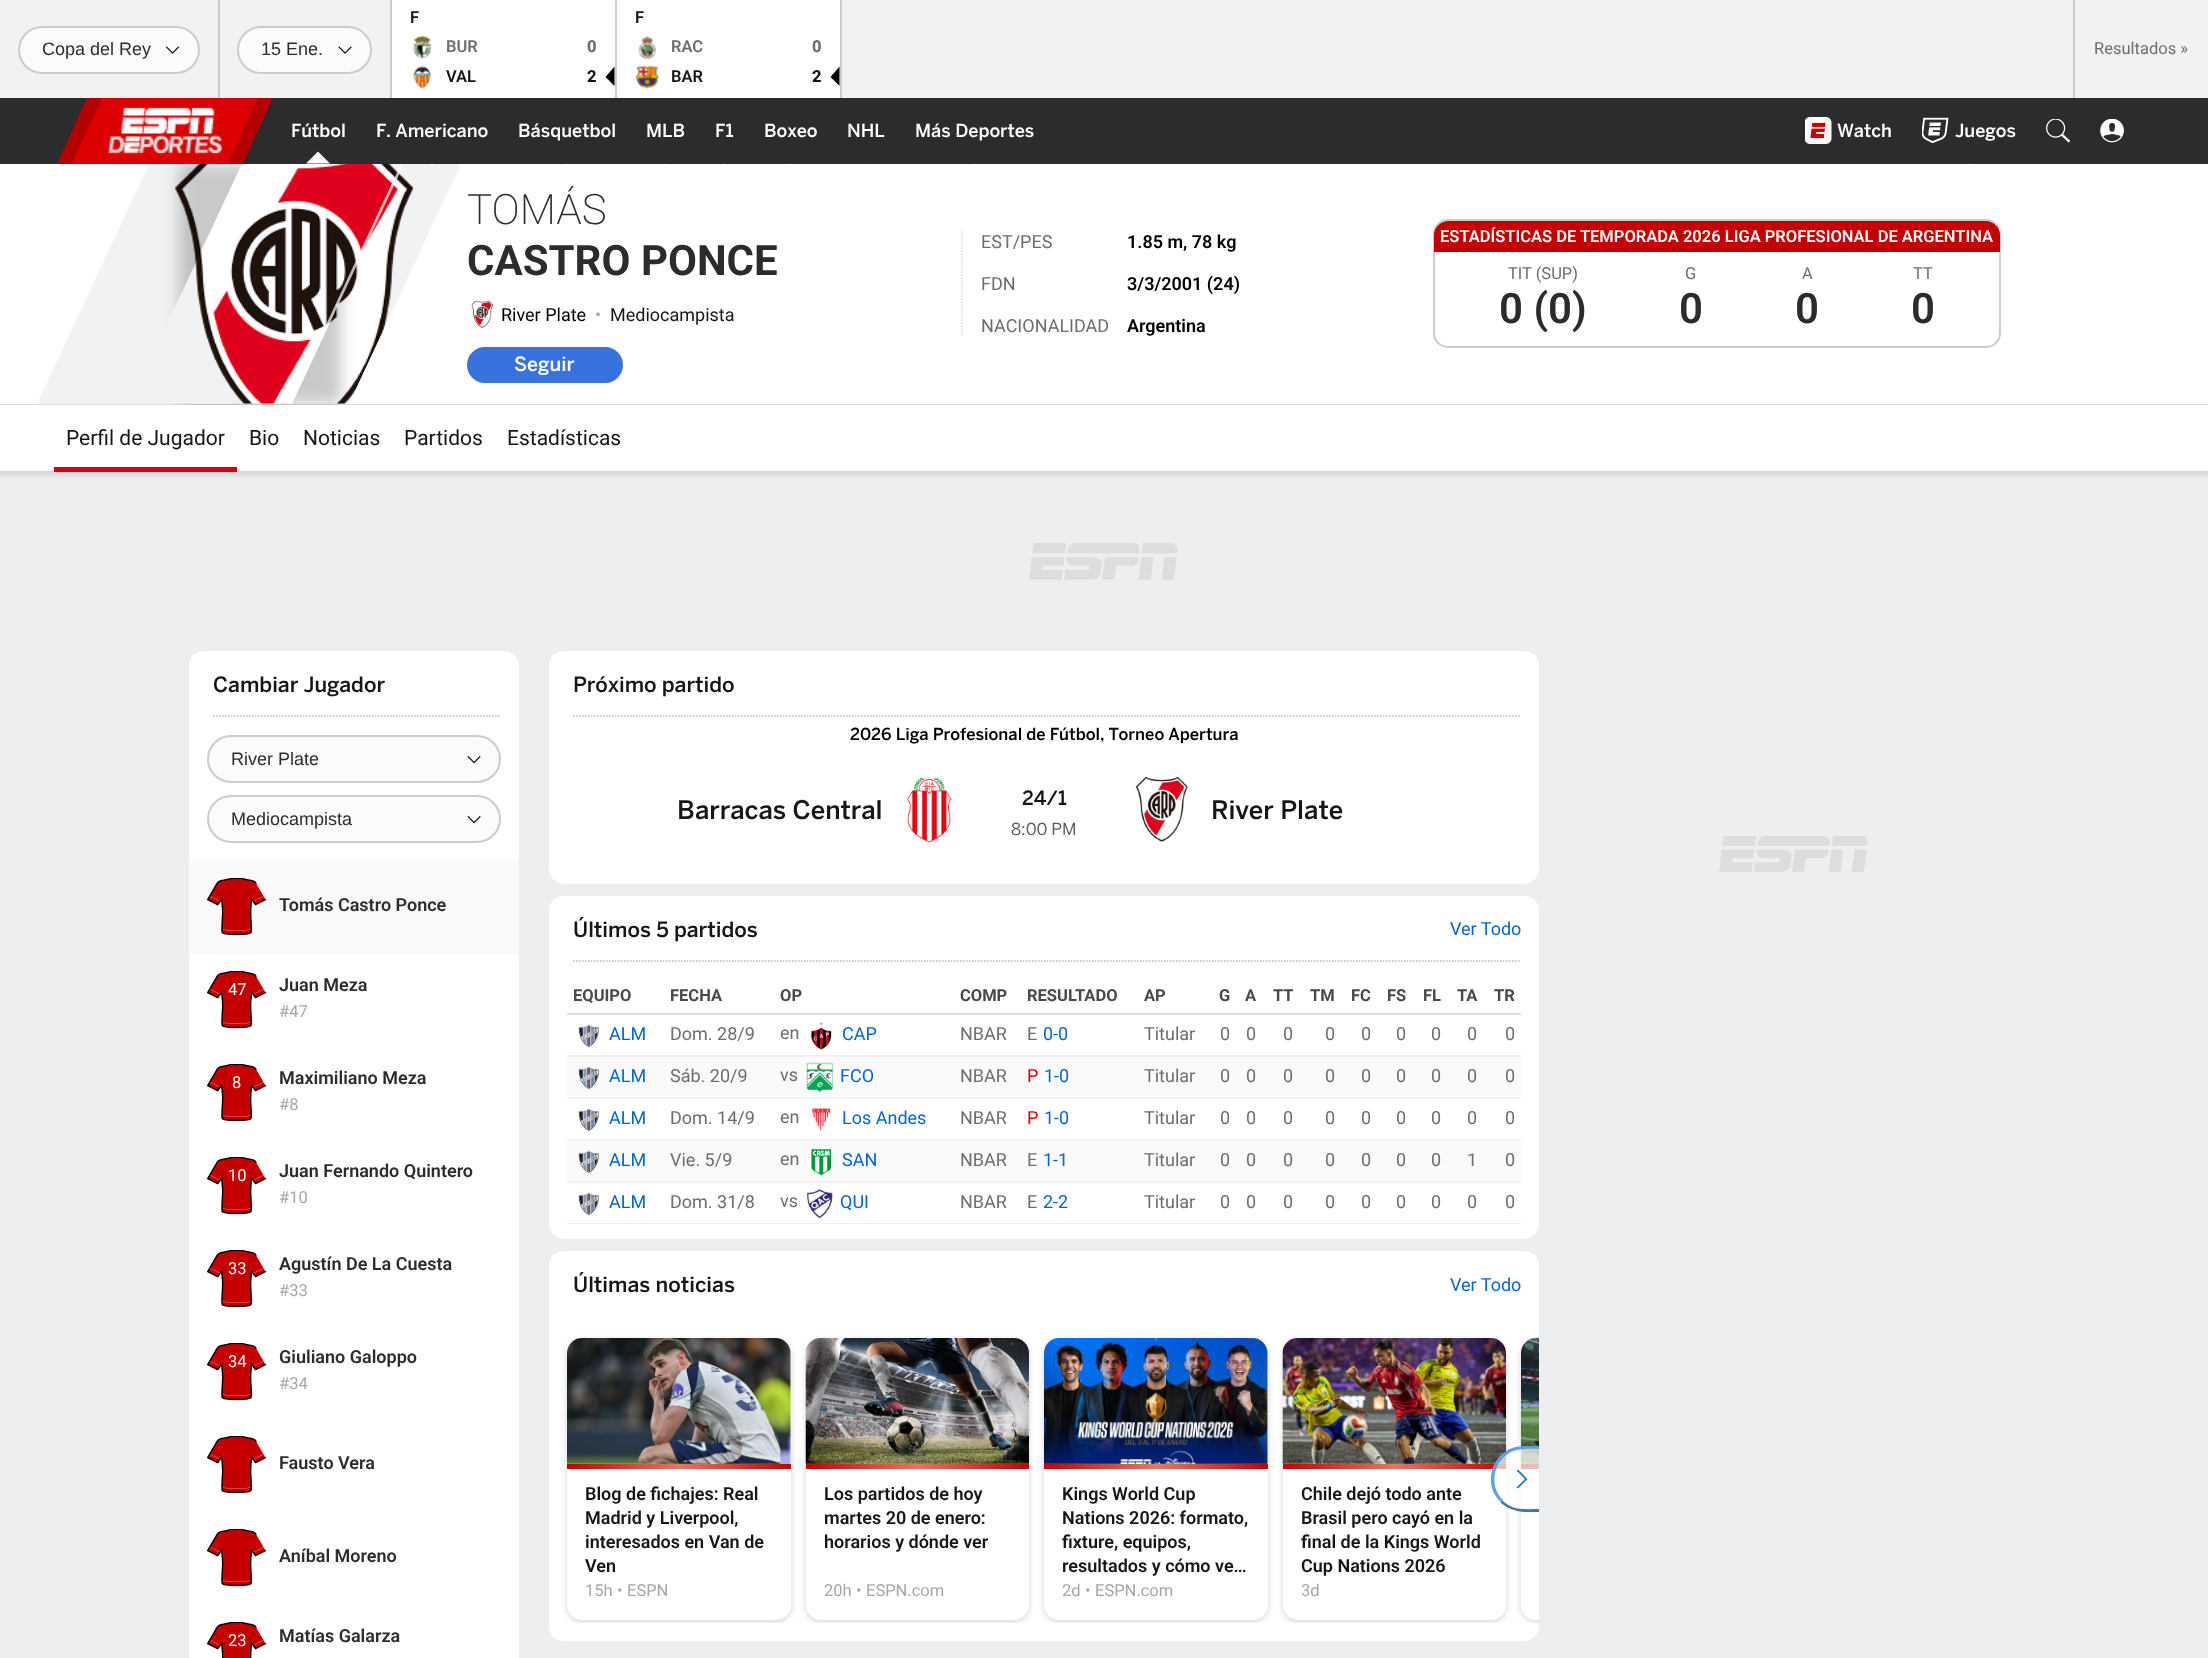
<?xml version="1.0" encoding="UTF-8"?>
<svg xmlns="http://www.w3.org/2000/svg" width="2208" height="1658">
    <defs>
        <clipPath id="clip1"><path d="M 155 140 H 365 V 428 H 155 Z M 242 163.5 H 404 L 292 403.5 H 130 Z" clip-rule="evenodd"/></clipPath>
        <filter id="blur1" x="-50%" y="-200%" width="200%" height="500%"><feGaussianBlur stdDeviation="7.5"/></filter>
        <clipPath id="clip2"><rect x="377" y="98" width="111" height="66"/></clipPath>
        <clipPath id="clip3"><rect x="518" y="98" width="99" height="66"/></clipPath>
        <clipPath id="clip4"><rect x="647" y="98" width="39" height="66"/></clipPath>
        <clipPath id="clip5"><rect x="716" y="98" width="18" height="66"/></clipPath>
        <clipPath id="clip6"><rect x="764" y="98" width="54" height="66"/></clipPath>
        <clipPath id="clip7"><rect x="848" y="98" width="37" height="66"/></clipPath>
        <clipPath id="clip8"><rect x="915" y="98" width="120" height="66"/></clipPath>
        <clipPath id="clip9"><rect x="1805" y="98" width="87" height="66"/></clipPath>
        <clipPath id="clip10"><rect x="1922" y="98" width="94" height="66"/></clipPath>
        <clipPath id="clip11"><rect x="2100" y="98" width="24" height="66"/></clipPath>
        <clipPath id="clip12"><rect x="39" y="164" width="420" height="240"/></clipPath>
        <linearGradient id="g1" gradientUnits="userSpaceOnUse" x1="1104" y1="471" x2="1104" y2="479"><stop offset="0" stop-color="#D5D6D8"/><stop offset="1" stop-color="#EDEEF0"/></linearGradient>
        <clipPath id="clip13"><rect x="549" y="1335" width="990" height="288"/></clipPath>
        <filter id="blur2" x="-50%" y="-200%" width="200%" height="500%"><feGaussianBlur stdDeviation="3"/></filter>
        <linearGradient id="g2" gradientUnits="userSpaceOnUse" x1="1283" y1="1466" x2="1506" y2="1466"><stop offset="0" stop-color="#C60000"/><stop offset="0.5" stop-color="#E07A60"/><stop offset="1" stop-color="#C60000"/></linearGradient>
        <linearGradient id="g3" gradientUnits="userSpaceOnUse" x1="1521" y1="1466" x2="1745" y2="1466"><stop offset="0" stop-color="#C60000"/><stop offset="0.5" stop-color="#E07A60"/><stop offset="1" stop-color="#C60000"/></linearGradient>
        <linearGradient id="g4" gradientUnits="userSpaceOnUse" x1="567" y1="1466" x2="791" y2="1466"><stop offset="0" stop-color="#C60000"/><stop offset="0.5" stop-color="#E07A60"/><stop offset="1" stop-color="#C60000"/></linearGradient>
        <linearGradient id="g5" gradientUnits="userSpaceOnUse" x1="806" y1="1466" x2="1029" y2="1466"><stop offset="0" stop-color="#C60000"/><stop offset="0.5" stop-color="#E07A60"/><stop offset="1" stop-color="#C60000"/></linearGradient>
        <linearGradient id="g6" gradientUnits="userSpaceOnUse" x1="1044" y1="1466" x2="1268" y2="1466"><stop offset="0" stop-color="#C60000"/><stop offset="0.5" stop-color="#E07A60"/><stop offset="1" stop-color="#C60000"/></linearGradient>
    </defs>
    <rect width="100%" height="100%" fill="#EDEEF0"/>
    <rect x="0" y="0" width="2208" height="98" fill="#F1F2F3"/>
    <rect x="218" y="0" width="2" height="98" fill="#CBCCCE"/>
    <rect x="19" y="27" width="180" height="46" rx="23" fill="#FBFBFB" stroke="#CBCCCE" stroke-width="2"/>
    <text x="42" y="55" font-family="Liberation Sans" font-size="18" fill="#2B2C2D">Copa del Rey</text>
    <image x="166" y="46" width="14" height="8" href="img_01.png"/>
    <rect x="390" y="0" width="2" height="98" fill="#CBCCCE"/>
    <rect x="238" y="27" width="133" height="46" rx="23" fill="#FBFBFB" stroke="#CBCCCE" stroke-width="2"/>
    <text x="261" y="55" font-family="Liberation Sans" font-size="18" fill="#2B2C2D">15 Ene.</text>
    <image x="338" y="46" width="14" height="8" href="img_02.png"/>
    <rect x="392" y="0" width="223" height="98" fill="#FFFFFF"/>
    <rect x="615" y="0" width="2" height="98" fill="#CBCCCE"/>
    <text x="410" y="23" font-family="Roboto" font-size="16.5" font-weight="600" fill="#151617">F</text>
    <image x="413" y="35" width="18" height="24" href="img_03.png"/>
    <text x="446" y="52" font-family="Roboto" font-size="16.5" font-weight="600" fill="#6C6D6F">BUR</text>
    <text x="587" y="52" font-family="Roboto" font-size="16.5" font-weight="800" fill="#6C6D6F">0</text>
    <image x="413" y="66" width="18" height="23" href="img_04.png"/>
    <text x="446" y="82" font-family="Roboto" font-size="16.5" font-weight="600" fill="#151617">VAL</text>
    <text x="587" y="82" font-family="Roboto" font-size="16.5" font-weight="800" fill="#151617">2</text>
    <path d="M 605.5 77 L 614.5 86 V 66.5 Z" fill="#000000"/>
    <rect x="617" y="0" width="223" height="98" fill="#FFFFFF"/>
    <rect x="840" y="0" width="2" height="98" fill="#CBCCCE"/>
    <text x="635" y="23" font-family="Roboto" font-size="16.5" font-weight="600" fill="#151617">F</text>
    <image x="638" y="35" width="18" height="24" href="img_05.png"/>
    <text x="671" y="52" font-family="Roboto" font-size="16.5" font-weight="600" fill="#6C6D6F">RAC</text>
    <text x="812" y="52" font-family="Roboto" font-size="16.5" font-weight="800" fill="#6C6D6F">0</text>
    <image x="635" y="65" width="24" height="24" href="img_06.png"/>
    <text x="671" y="82" font-family="Roboto" font-size="16.5" font-weight="600" fill="#151617">BAR</text>
    <text x="812" y="82" font-family="Roboto" font-size="16.5" font-weight="800" fill="#151617">2</text>
    <path d="M 830.5 77 L 839.5 86 V 66.5 Z" fill="#000000"/>
    <rect x="2073" y="0" width="2" height="98" fill="#CBCCCE"/>
    <text x="2094" y="54" font-family="Roboto" font-size="16.5" fill="#6C6D6F">Resultados »</text>
    <rect x="0" y="164" width="2208" height="240" fill="#FFFFFF"/>
    <rect x="0" y="404" width="2208" height="1" fill="#DCDDDF"/>
    <rect x="39" y="164" width="420" height="240" fill="#F1F2F3"/>
    <image x="175" y="164" width="239" height="240" href="img_12.png"/>
    <g clip-path="url(#clip1)">
        <rect x="179" y="164" width="162" height="240" fill="#000000" fill-opacity="0.21" filter="url(#blur1)"/>
    </g>
    <rect x="0" y="98" width="2208" height="66" fill="#2B2C2D"/>
    <path d="M 87 98 H 273 L 243 164 H 57 Z" fill="#B40000"/>
    <path d="M 102 98 H 258 L 228 164 H 72 Z" fill="#DD0000"/>
    <image x="108" y="107" width="114" height="47" href="img_07.png"/>
    <text x="291" y="137" font-family="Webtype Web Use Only" font-size="18" font-weight="500" fill="#FFFFFF">Fútbol</text>
    <path d="M 330 163.5 H 306 L 318 151.5 Z" fill="#FFFFFF"/>
    <text x="376" y="137" font-family="Webtype Web Use Only" font-size="18" font-weight="500" fill="#FFFFFF">F. Americano</text>
    <g clip-path="url(#clip2)">
        <path d="M 444 175.5 H 420 L 432 163.5 Z" fill="#FFFFFF"/>
    </g>
    <text x="518" y="137" font-family="Webtype Web Use Only" font-size="18" font-weight="500" fill="#FFFFFF">Básquetbol</text>
    <g clip-path="url(#clip3)">
        <path d="M 579 175.5 H 555 L 567 163.5 Z" fill="#FFFFFF"/>
    </g>
    <text x="646" y="137" font-family="Webtype Web Use Only" font-size="18" font-weight="500" fill="#FFFFFF">MLB</text>
    <g clip-path="url(#clip4)">
        <path d="M 678 175.5 H 654 L 666 163.5 Z" fill="#FFFFFF"/>
    </g>
    <text x="715" y="137" font-family="Webtype Web Use Only" font-size="18" font-weight="500" fill="#FFFFFF">F1</text>
    <g clip-path="url(#clip5)">
        <path d="M 736.5 175.5 H 712.5 L 724.5 163.5 Z" fill="#FFFFFF"/>
    </g>
    <text x="764" y="137" font-family="Webtype Web Use Only" font-size="18" font-weight="500" fill="#FFFFFF">Boxeo</text>
    <g clip-path="url(#clip6)">
        <path d="M 802.5 175.5 H 778.5 L 790.5 163.5 Z" fill="#FFFFFF"/>
    </g>
    <text x="847" y="137" font-family="Webtype Web Use Only" font-size="18" font-weight="500" fill="#FFFFFF">NHL</text>
    <g clip-path="url(#clip7)">
        <path d="M 879 175.5 H 855 L 867 163.5 Z" fill="#FFFFFF"/>
    </g>
    <text x="915" y="137" font-family="Webtype Web Use Only" font-size="18" font-weight="500" fill="#FFFFFF">Más Deportes</text>
    <g clip-path="url(#clip8)">
        <path d="M 987 175.5 H 963 L 975 163.5 Z" fill="#FFFFFF"/>
    </g>
    <image x="1805" y="117" width="27" height="27" href="img_08.png"/>
    <text x="1837" y="137" font-family="Webtype Web Use Only" font-size="18" font-weight="500" fill="#FFFFFF">Watch</text>
    <g clip-path="url(#clip9)">
        <path d="M 1860 175.5 H 1836 L 1848 163.5 Z" fill="#FFFFFF"/>
    </g>
    <image x="1922" y="117" width="27" height="27" href="img_09.png"/>
    <text x="1955" y="137" font-family="Webtype Web Use Only" font-size="18" font-weight="500" fill="#FFFFFF">Juegos</text>
    <g clip-path="url(#clip10)">
        <path d="M 1981.5 175.5 H 1957.5 L 1969.5 163.5 Z" fill="#FFFFFF"/>
    </g>
    <image x="2046" y="119" width="24" height="24" href="img_10.png"/>
    <image x="2100" y="119" width="24" height="24" href="img_11.png"/>
    <g clip-path="url(#clip11)">
        <path d="M 2124 175.5 H 2100 L 2112 163.5 Z" fill="#FFFFFF"/>
    </g>
    <g clip-path="url(#clip12)">
        <path d="M 35 164 H 149 L 37 404 H -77 Z" fill="#FFFFFF"/>
    </g>
    <path d="M 401 164 H 404 L 292 404 H 289 Z" fill="#FFFFFF" fill-opacity="0.7"/>
    <g clip-path="url(#clip12)">
        <path d="M 461 164 H 575 L 463 404 H 349 Z" fill="#FFFFFF"/>
        <path d="M 461 164 H 575 L 463 404 H 349 Z" fill="#FFFFFF" fill-opacity="0.9"/>
    </g>
    <text x="467" y="224" font-family="Roboto" font-size="42" font-weight="200" fill="#2B2C2D">TOMÁS</text>
    <text x="467" y="275" font-family="Roboto" font-size="42" font-weight="700" fill="#2B2C2D">CASTRO PONCE</text>
    <image x="471" y="300" width="23" height="28" href="img_13.png"/>
    <text x="501" y="321" font-family="Roboto" font-size="18" fill="#000000">River Plate</text>
    <text x="595" y="321" font-family="Roboto" font-size="18" fill="#A5A6A7">•</text>
    <text x="610" y="321" font-family="Roboto" font-size="18" fill="#151617">Mediocampista</text>
    <rect x="468" y="348" width="154" height="34" rx="17" fill="#3772DF" stroke="#3772DF" stroke-width="2"/>
    <text x="514" y="371" font-family="Webtype Web Use Only" font-size="19.5" font-weight="500" fill="#FFFFFF">Seguir</text>
    <path d="M 962 229.5 V 337.5" fill="none" stroke="#DCDDDF" stroke-width="1.5" stroke-dasharray="1.5 1.5"/>
    <text x="981" y="248" font-family="Roboto" font-size="18" fill="#6C6D6F">EST/PES</text>
    <text x="1127" y="248" font-family="Roboto" font-size="18" font-weight="600" fill="#000000">1.85 m, 78 kg</text>
    <text x="981" y="290" font-family="Roboto" font-size="18" fill="#6C6D6F">FDN</text>
    <text x="1127" y="290" font-family="Roboto" font-size="18" font-weight="600" fill="#000000">3/3/2001 (24)</text>
    <text x="981" y="332" font-family="Roboto" font-size="18" fill="#6C6D6F">NACIONALIDAD</text>
    <text x="1127" y="332" font-family="Roboto" font-size="18" font-weight="600" fill="#000000">Argentina</text>
    <rect x="1434" y="220" width="566" height="127" rx="14" fill="none" stroke="#CBCCCE" stroke-width="2"/>
    <path d="M 1448 221 H 1986 C 1993.5 221 2000 227.5 2000 235 V 252 H 1434 V 235 C 1434 227.5 1440.5 221 1448 221 Z" fill="#C60000"/>
    <text x="1440" y="242" font-family="Roboto" font-size="16.5" font-weight="600" fill="#FFFFFF">ESTADÍSTICAS DE TEMPORADA 2026 LIGA PROFESIONAL DE ARGENTINA</text>
    <text x="1508" y="279" font-family="Roboto" font-size="16.5" fill="#6C6D6F">TIT (SUP)</text>
    <text x="1499" y="323" font-family="Roboto" font-size="42" font-weight="600" fill="#2B2C2D">0 (0)</text>
    <text x="1685" y="279" font-family="Roboto" font-size="16.5" fill="#6C6D6F">G</text>
    <text x="1679" y="323" font-family="Roboto" font-size="42" font-weight="600" fill="#2B2C2D">0</text>
    <text x="1802" y="279" font-family="Roboto" font-size="16.5" fill="#6C6D6F">A</text>
    <text x="1795" y="323" font-family="Roboto" font-size="42" font-weight="600" fill="#2B2C2D">0</text>
    <text x="1913" y="279" font-family="Roboto" font-size="16.5" fill="#6C6D6F">TT</text>
    <text x="1911" y="323" font-family="Roboto" font-size="42" font-weight="600" fill="#2B2C2D">0</text>
    <rect x="0" y="405" width="2208" height="66" fill="#FFFFFF"/>
    <rect x="0" y="471" width="2208" height="7" fill="url(#g1)"/>
    <rect x="54" y="467" width="183" height="5" fill="#DD0000"/>
    <text x="66" y="445" font-family="Roboto" font-size="21" fill="#151617">Perfil de Jugador</text>
    <text x="249" y="445" font-family="Roboto" font-size="21" fill="#151617">Bio</text>
    <text x="303" y="445" font-family="Roboto" font-size="21" fill="#151617">Noticias</text>
    <text x="404" y="445" font-family="Roboto" font-size="21" fill="#151617">Partidos</text>
    <text x="507" y="445" font-family="Roboto" font-size="21" fill="#151617">Estadísticas</text>
    <image x="1029" y="543" width="149" height="37" href="img_14.png"/>
    <rect x="189" y="651" width="330" height="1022" rx="15" fill="#FFFFFF"/>
    <path d="M 213 716 H 501" fill="none" stroke="#B5B7B7" stroke-width="1.5" stroke-dasharray="1.5 1.5"/>
    <text x="213" y="692" font-family="Webtype Web Use Only" font-size="21" font-weight="500" fill="#151617">Cambiar Jugador</text>
    <rect x="208" y="736" width="292" height="46" rx="23" fill="#FBFBFB" stroke="#CBCCCE" stroke-width="2"/>
    <text x="231" y="765" font-family="Liberation Sans" font-size="18" fill="#2B2C2D">River Plate</text>
    <image x="467" y="756" width="14" height="8" href="img_15.png"/>
    <rect x="208" y="796" width="292" height="46" rx="23" fill="#FBFBFB" stroke="#CBCCCE" stroke-width="2"/>
    <text x="231" y="825" font-family="Liberation Sans" font-size="18" fill="#2B2C2D">Mediocampista</text>
    <image x="467" y="816" width="14" height="8" href="img_15.png"/>
    <rect x="189" y="861" width="330" height="93" fill="#F9F9FB"/>
    <image x="207" y="878" width="60" height="58" href="img_16.png"/>
    <text x="279" y="911" font-family="Roboto" font-size="18" font-weight="600" fill="#2B2C2D">Tomás Castro Ponce</text>
    <image x="207" y="971" width="60" height="58" href="img_17.png"/>
    <text x="228" y="995" font-family="Roboto" font-size="16.5" fill="#FFFFFF">47</text>
    <text x="279" y="991" font-family="Roboto" font-size="18" font-weight="600" fill="#2B2C2D">Juan Meza</text>
    <text x="279" y="1017" font-family="Roboto" font-size="16.5" fill="#A5A6A7">#47</text>
    <image x="207" y="1064" width="60" height="58" href="img_17.png"/>
    <text x="232" y="1088" font-family="Roboto" font-size="16.5" fill="#FFFFFF">8</text>
    <text x="279" y="1084" font-family="Roboto" font-size="18" font-weight="600" fill="#2B2C2D">Maximiliano Meza</text>
    <text x="279" y="1110" font-family="Roboto" font-size="16.5" fill="#A5A6A7">#8</text>
    <image x="207" y="1157" width="60" height="58" href="img_17.png"/>
    <text x="228" y="1181" font-family="Roboto" font-size="16.5" fill="#FFFFFF">10</text>
    <text x="279" y="1177" font-family="Roboto" font-size="18" font-weight="600" fill="#2B2C2D">Juan Fernando Quintero</text>
    <text x="279" y="1203" font-family="Roboto" font-size="16.5" fill="#A5A6A7">#10</text>
    <image x="207" y="1250" width="60" height="58" href="img_17.png"/>
    <text x="228" y="1274" font-family="Roboto" font-size="16.5" fill="#FFFFFF">33</text>
    <text x="279" y="1270" font-family="Roboto" font-size="18" font-weight="600" fill="#2B2C2D">Agustín De La Cuesta</text>
    <text x="279" y="1296" font-family="Roboto" font-size="16.5" fill="#A5A6A7">#33</text>
    <image x="207" y="1343" width="60" height="58" href="img_17.png"/>
    <text x="228" y="1367" font-family="Roboto" font-size="16.5" fill="#FFFFFF">34</text>
    <text x="279" y="1363" font-family="Roboto" font-size="18" font-weight="600" fill="#2B2C2D">Giuliano Galoppo</text>
    <text x="279" y="1389" font-family="Roboto" font-size="16.5" fill="#A5A6A7">#34</text>
    <image x="207" y="1436" width="60" height="58" href="img_17.png"/>
    <text x="279" y="1469" font-family="Roboto" font-size="18" font-weight="600" fill="#2B2C2D">Fausto Vera</text>
    <image x="207" y="1529" width="60" height="58" href="img_17.png"/>
    <text x="279" y="1562" font-family="Roboto" font-size="18" font-weight="600" fill="#2B2C2D">Aníbal Moreno</text>
    <image x="207" y="1622" width="60" height="36" href="img_18.png"/>
    <text x="228" y="1646" font-family="Roboto" font-size="16.5" fill="#FFFFFF">23</text>
    <text x="279" y="1642" font-family="Roboto" font-size="18" font-weight="600" fill="#2B2C2D">Matías Galarza</text>
    <rect x="549" y="651" width="990" height="233" rx="15" fill="#FFFFFF"/>
    <path d="M 573 716 H 1521" fill="none" stroke="#B5B7B7" stroke-width="1.5" stroke-dasharray="1.5 1.5"/>
    <text x="573" y="692" font-family="Webtype Web Use Only" font-size="21" font-weight="500" fill="#151617">Próximo partido</text>
    <text x="850" y="740" font-family="Webtype Web Use Only" font-size="16.5" font-weight="500" fill="#000000">2026 Liga Profesional de Fútbol, Torneo Apertura</text>
    <text x="677" y="819" font-family="Webtype Web Use Only" font-size="25.5" font-weight="500" fill="#151617">Barracas Central</text>
    <image x="906" y="777" width="46" height="66" href="img_19.png"/>
    <text x="1022" y="805" font-family="Webtype Web Use Only" font-size="19.5" font-weight="500" fill="#151617">24/1</text>
    <text x="1011" y="835" font-family="Webtype Web Use Only" font-size="16.5" fill="#5A5C5D">8:00 PM</text>
    <image x="1135" y="777" width="53" height="65" href="img_20.png"/>
    <text x="1211" y="819" font-family="Webtype Web Use Only" font-size="25.5" font-weight="500" fill="#151617">River Plate</text>
    <rect x="549" y="896" width="990" height="343" rx="15" fill="#FFFFFF"/>
    <path d="M 573 961 H 1521" fill="none" stroke="#B5B7B7" stroke-width="1.5" stroke-dasharray="1.5 1.5"/>
    <text x="573" y="937" font-family="Webtype Web Use Only" font-size="21" font-weight="500" fill="#151617">Últimos 5 partidos</text>
    <text x="1450" y="935" font-family="Roboto" font-size="18" fill="#0066CC">Ver Todo</text>
    <text x="573" y="1001" font-family="Roboto" font-size="16.5" font-weight="700" fill="#48494A">EQUIPO</text>
    <text x="670" y="1001" font-family="Roboto" font-size="16.5" font-weight="700" fill="#48494A">FECHA</text>
    <text x="780" y="1001" font-family="Roboto" font-size="16.5" font-weight="700" fill="#48494A">OP</text>
    <text x="960" y="1001" font-family="Roboto" font-size="16.5" font-weight="700" fill="#48494A">COMP</text>
    <text x="1027" y="1001" font-family="Roboto" font-size="16.5" font-weight="700" fill="#48494A">RESULTADO</text>
    <text x="1144" y="1001" font-family="Roboto" font-size="16.5" font-weight="700" fill="#48494A">AP</text>
    <text x="1219" y="1001" font-family="Roboto" font-size="16.5" font-weight="700" fill="#48494A">G</text>
    <text x="1245" y="1001" font-family="Roboto" font-size="16.5" font-weight="700" fill="#48494A">A</text>
    <text x="1273" y="1001" font-family="Roboto" font-size="16.5" font-weight="700" fill="#48494A">TT</text>
    <text x="1310" y="1001" font-family="Roboto" font-size="16.5" font-weight="700" fill="#48494A">TM</text>
    <text x="1351" y="1001" font-family="Roboto" font-size="16.5" font-weight="700" fill="#48494A">FC</text>
    <text x="1387" y="1001" font-family="Roboto" font-size="16.5" font-weight="700" fill="#48494A">FS</text>
    <text x="1423" y="1001" font-family="Roboto" font-size="16.5" font-weight="700" fill="#48494A">FL</text>
    <text x="1457" y="1001" font-family="Roboto" font-size="16.5" font-weight="700" fill="#48494A">TA</text>
    <rect x="567" y="1013" width="954" height="2" fill="#DCDDDF"/>
    <text x="1494" y="1001" font-family="Roboto" font-size="16.5" font-weight="700" fill="#48494A">TR</text>
    <image x="578" y="1024" width="21" height="23" href="img_21.png"/>
    <text x="609" y="1040" font-family="Roboto" font-size="18" fill="#0066CC">ALM</text>
    <text x="670" y="1040" font-family="Roboto" font-size="18" fill="#6C6D6F">Dom. 28/9</text>
    <text x="780" y="1039" font-family="Roboto" font-size="18" fill="#6C6D6F">en</text>
    <image x="810" y="1022" width="22" height="28" href="img_22.png"/>
    <text x="842" y="1040" font-family="Roboto" font-size="18" fill="#0066CC">CAP</text>
    <text x="960" y="1040" font-family="Roboto" font-size="18" fill="#6C6D6F">NBAR</text>
    <text x="1027" y="1040" font-family="Roboto" font-size="18" fill="#6C6D6F">E</text>
    <text x="1043" y="1040" font-family="Roboto" font-size="18" fill="#0066CC">0-0</text>
    <text x="1144" y="1040" font-family="Roboto" font-size="18" fill="#6C6D6F">Titular</text>
    <text x="1220" y="1040" font-family="Roboto" font-size="18" fill="#6C6D6F">0</text>
    <text x="1246" y="1040" font-family="Roboto" font-size="18" fill="#6C6D6F">0</text>
    <text x="1283" y="1040" font-family="Roboto" font-size="18" fill="#6C6D6F">0</text>
    <text x="1325" y="1040" font-family="Roboto" font-size="18" fill="#6C6D6F">0</text>
    <text x="1361" y="1040" font-family="Roboto" font-size="18" fill="#6C6D6F">0</text>
    <text x="1396" y="1040" font-family="Roboto" font-size="18" fill="#6C6D6F">0</text>
    <text x="1431" y="1040" font-family="Roboto" font-size="18" fill="#6C6D6F">0</text>
    <text x="1467" y="1040" font-family="Roboto" font-size="18" fill="#6C6D6F">0</text>
    <rect x="567" y="1055" width="954" height="2" fill="#F1F2F3"/>
    <text x="1505" y="1040" font-family="Roboto" font-size="18" fill="#6C6D6F">0</text>
    <rect x="567" y="1057" width="954" height="40" fill="#FAFAFA"/>
    <image x="578" y="1066" width="21" height="23" href="img_23.png"/>
    <text x="609" y="1082" font-family="Roboto" font-size="18" fill="#0066CC">ALM</text>
    <text x="670" y="1082" font-family="Roboto" font-size="18" fill="#6C6D6F">Sáb. 20/9</text>
    <text x="780" y="1081" font-family="Roboto" font-size="18" fill="#6C6D6F">vs</text>
    <image x="806" y="1062" width="28" height="30" href="img_24.png"/>
    <text x="840" y="1082" font-family="Roboto" font-size="18" fill="#0066CC">FCO</text>
    <text x="960" y="1082" font-family="Roboto" font-size="18" fill="#6C6D6F">NBAR</text>
    <text x="1027" y="1082" font-family="Roboto" font-size="18" fill="#DD0000">P</text>
    <text x="1044" y="1082" font-family="Roboto" font-size="18" fill="#0066CC">1-0</text>
    <text x="1144" y="1082" font-family="Roboto" font-size="18" fill="#6C6D6F">Titular</text>
    <text x="1220" y="1082" font-family="Roboto" font-size="18" fill="#6C6D6F">0</text>
    <text x="1246" y="1082" font-family="Roboto" font-size="18" fill="#6C6D6F">0</text>
    <text x="1283" y="1082" font-family="Roboto" font-size="18" fill="#6C6D6F">0</text>
    <text x="1325" y="1082" font-family="Roboto" font-size="18" fill="#6C6D6F">0</text>
    <text x="1361" y="1082" font-family="Roboto" font-size="18" fill="#6C6D6F">0</text>
    <text x="1396" y="1082" font-family="Roboto" font-size="18" fill="#6C6D6F">0</text>
    <text x="1431" y="1082" font-family="Roboto" font-size="18" fill="#6C6D6F">0</text>
    <text x="1467" y="1082" font-family="Roboto" font-size="18" fill="#6C6D6F">0</text>
    <rect x="567" y="1097" width="954" height="2" fill="#F1F2F3"/>
    <text x="1505" y="1082" font-family="Roboto" font-size="18" fill="#6C6D6F">0</text>
    <image x="578" y="1108" width="21" height="23" href="img_21.png"/>
    <text x="609" y="1124" font-family="Roboto" font-size="18" fill="#0066CC">ALM</text>
    <text x="670" y="1124" font-family="Roboto" font-size="18" fill="#6C6D6F">Dom. 14/9</text>
    <text x="780" y="1123" font-family="Roboto" font-size="18" fill="#6C6D6F">en</text>
    <image x="811" y="1108" width="20" height="23" href="img_25.png"/>
    <text x="842" y="1124" font-family="Roboto" font-size="18" fill="#0066CC">Los Andes</text>
    <text x="960" y="1124" font-family="Roboto" font-size="18" fill="#6C6D6F">NBAR</text>
    <text x="1027" y="1124" font-family="Roboto" font-size="18" fill="#DD0000">P</text>
    <text x="1044" y="1124" font-family="Roboto" font-size="18" fill="#0066CC">1-0</text>
    <text x="1144" y="1124" font-family="Roboto" font-size="18" fill="#6C6D6F">Titular</text>
    <text x="1220" y="1124" font-family="Roboto" font-size="18" fill="#6C6D6F">0</text>
    <text x="1246" y="1124" font-family="Roboto" font-size="18" fill="#6C6D6F">0</text>
    <text x="1283" y="1124" font-family="Roboto" font-size="18" fill="#6C6D6F">0</text>
    <text x="1325" y="1124" font-family="Roboto" font-size="18" fill="#6C6D6F">0</text>
    <text x="1361" y="1124" font-family="Roboto" font-size="18" fill="#6C6D6F">0</text>
    <text x="1396" y="1124" font-family="Roboto" font-size="18" fill="#6C6D6F">0</text>
    <text x="1431" y="1124" font-family="Roboto" font-size="18" fill="#6C6D6F">0</text>
    <text x="1467" y="1124" font-family="Roboto" font-size="18" fill="#6C6D6F">0</text>
    <rect x="567" y="1139" width="954" height="2" fill="#F1F2F3"/>
    <text x="1505" y="1124" font-family="Roboto" font-size="18" fill="#6C6D6F">0</text>
    <rect x="567" y="1141" width="954" height="40" fill="#FAFAFA"/>
    <image x="578" y="1150" width="21" height="23" href="img_23.png"/>
    <text x="609" y="1166" font-family="Roboto" font-size="18" fill="#0066CC">ALM</text>
    <text x="670" y="1166" font-family="Roboto" font-size="18" fill="#6C6D6F">Vie. 5/9</text>
    <text x="780" y="1165" font-family="Roboto" font-size="18" fill="#6C6D6F">en</text>
    <image x="811" y="1149" width="21" height="27" href="img_26.png"/>
    <text x="842" y="1166" font-family="Roboto" font-size="18" fill="#0066CC">SAN</text>
    <text x="960" y="1166" font-family="Roboto" font-size="18" fill="#6C6D6F">NBAR</text>
    <text x="1027" y="1166" font-family="Roboto" font-size="18" fill="#6C6D6F">E</text>
    <text x="1043" y="1166" font-family="Roboto" font-size="18" fill="#0066CC">1-1</text>
    <text x="1144" y="1166" font-family="Roboto" font-size="18" fill="#6C6D6F">Titular</text>
    <text x="1220" y="1166" font-family="Roboto" font-size="18" fill="#6C6D6F">0</text>
    <text x="1246" y="1166" font-family="Roboto" font-size="18" fill="#6C6D6F">0</text>
    <text x="1283" y="1166" font-family="Roboto" font-size="18" fill="#6C6D6F">0</text>
    <text x="1325" y="1166" font-family="Roboto" font-size="18" fill="#6C6D6F">0</text>
    <text x="1361" y="1166" font-family="Roboto" font-size="18" fill="#6C6D6F">0</text>
    <text x="1396" y="1166" font-family="Roboto" font-size="18" fill="#6C6D6F">0</text>
    <text x="1431" y="1166" font-family="Roboto" font-size="18" fill="#6C6D6F">0</text>
    <text x="1467" y="1166" font-family="Roboto" font-size="18" fill="#6C6D6F">1</text>
    <rect x="567" y="1181" width="954" height="2" fill="#F1F2F3"/>
    <text x="1505" y="1166" font-family="Roboto" font-size="18" fill="#6C6D6F">0</text>
    <image x="578" y="1192" width="21" height="23" href="img_21.png"/>
    <text x="609" y="1208" font-family="Roboto" font-size="18" fill="#0066CC">ALM</text>
    <text x="670" y="1208" font-family="Roboto" font-size="18" fill="#6C6D6F">Dom. 31/8</text>
    <text x="780" y="1207" font-family="Roboto" font-size="18" fill="#6C6D6F">vs</text>
    <image x="807" y="1189" width="26" height="29" href="img_27.png"/>
    <text x="840" y="1208" font-family="Roboto" font-size="18" fill="#0066CC">QUI</text>
    <text x="960" y="1208" font-family="Roboto" font-size="18" fill="#6C6D6F">NBAR</text>
    <text x="1027" y="1208" font-family="Roboto" font-size="18" fill="#6C6D6F">E</text>
    <text x="1043" y="1208" font-family="Roboto" font-size="18" fill="#0066CC">2-2</text>
    <text x="1144" y="1208" font-family="Roboto" font-size="18" fill="#6C6D6F">Titular</text>
    <text x="1220" y="1208" font-family="Roboto" font-size="18" fill="#6C6D6F">0</text>
    <text x="1246" y="1208" font-family="Roboto" font-size="18" fill="#6C6D6F">0</text>
    <text x="1283" y="1208" font-family="Roboto" font-size="18" fill="#6C6D6F">0</text>
    <text x="1325" y="1208" font-family="Roboto" font-size="18" fill="#6C6D6F">0</text>
    <text x="1361" y="1208" font-family="Roboto" font-size="18" fill="#6C6D6F">0</text>
    <text x="1396" y="1208" font-family="Roboto" font-size="18" fill="#6C6D6F">0</text>
    <text x="1431" y="1208" font-family="Roboto" font-size="18" fill="#6C6D6F">0</text>
    <text x="1467" y="1208" font-family="Roboto" font-size="18" fill="#6C6D6F">0</text>
    <rect x="567" y="1223" width="954" height="1" fill="#F1F2F3"/>
    <text x="1505" y="1208" font-family="Roboto" font-size="18" fill="#6C6D6F">0</text>
    <rect x="549" y="1251" width="990" height="390" rx="15" fill="#FFFFFF"/>
    <text x="573" y="1292" font-family="Webtype Web Use Only" font-size="21" font-weight="500" fill="#151617">Últimas noticias</text>
    <text x="1450" y="1291" font-family="Roboto" font-size="18" fill="#0066CC">Ver Todo</text>
    <rect x="549" y="1317" width="990" height="324" rx="15" fill="#FFFFFF"/>
    <g clip-path="url(#clip13)">
        <rect x="1283" y="1340" width="223" height="282" rx="15" fill="#000000" fill-opacity="0.16" filter="url(#blur2)"/>
    </g>
    <rect x="1283" y="1338" width="223" height="282" rx="15" fill="#FFFFFF"/>
    <image x="1282" y="1338" width="224" height="126" href="img_31.png"/>
    <rect x="1283" y="1464" width="223" height="5" fill="url(#g2)"/>
    <g clip-path="url(#clip13)">
        <rect x="1521" y="1340" width="224" height="282" rx="15" fill="#000000" fill-opacity="0.16" filter="url(#blur2)"/>
    </g>
    <path d="M 1536 1338 H 1539 V 1620 H 1536 C 1527.5 1620 1521 1613.5 1521 1605 V 1353 C 1521 1344.5 1527.5 1338 1536 1338 Z" fill="#FFFFFF"/>
    <image x="1521" y="1338" width="18" height="126" href="img_32.png"/>
    <rect x="1521" y="1464" width="18" height="5" fill="url(#g3)"/>
    <path d="M 1524 1446 H 1539 V 1512 H 1524 C 1506 1512 1491 1497 1491 1479 C 1491 1461 1506 1446 1524 1446 Z" fill="#FFFFFF" fill-opacity="0.72"/>
    <path d="M 1524 1446 H 1539 V 1449 C 1526 1449 1513 1447 1503 1458 L 1500.5 1455.5 C 1506 1450 1514 1446 1524 1446 Z" fill="#4C99E6" fill-opacity="0.9"/>
    <path d="M 1539 1512 V 1509 C 1525.5 1509 1513 1511 1502.5 1500.5 L 1500.5 1502.5 C 1507 1508.5 1516 1511.5 1525 1512 Z" fill="#336699" fill-opacity="0.9"/>
    <path d="M 1503 1458 L 1501 1456 C 1488 1468 1487 1490 1501 1502 L 1503 1500 C 1491 1489 1492 1469 1503 1458 Z" fill="#4C99E6" fill-opacity="0.9"/>
    <path d="M 1518 1469.5 L 1516.5 1470.5 L 1525 1479 L 1516.5 1487.5 L 1518 1488.5 L 1527.5 1479 Z" fill="#0066CC" fill-opacity="0.9"/>
    <g clip-path="url(#clip13)">
        <rect x="567" y="1340" width="224" height="282" rx="15" fill="#000000" fill-opacity="0.16" filter="url(#blur2)"/>
    </g>
    <rect x="567" y="1338" width="224" height="282" rx="15" fill="#FFFFFF"/>
    <image x="567" y="1338" width="224" height="126" href="img_28.png"/>
    <rect x="567" y="1464" width="224" height="5" fill="url(#g4)"/>
    <text font-family="Roboto" font-size="18" font-weight="600" fill="#151617">
        <tspan x="585" y="1500">Blog de fichajes: Real</tspan>
        <tspan x="585" y="1524">Madrid y Liverpool,</tspan>
        <tspan x="585" y="1548">interesados en Van de</tspan>
        <tspan x="585" y="1572">Ven</tspan>
    </text>
    <text x="585" y="1596" font-family="Roboto" font-size="16.5" fill="#A5A6A7">15h</text>
    <text x="617" y="1596" font-family="Roboto" font-size="16.5" fill="#A5A6A7">•</text>
    <text x="627" y="1596" font-family="Roboto" font-size="16.5" fill="#A5A6A7">ESPN</text>
    <g clip-path="url(#clip13)">
        <rect x="806" y="1340" width="223" height="282" rx="15" fill="#000000" fill-opacity="0.16" filter="url(#blur2)"/>
    </g>
    <rect x="806" y="1338" width="223" height="282" rx="15" fill="#FFFFFF"/>
    <image x="805" y="1338" width="224" height="126" href="img_29.png"/>
    <rect x="806" y="1464" width="223" height="5" fill="url(#g5)"/>
    <text font-family="Roboto" font-size="18" font-weight="600" fill="#151617">
        <tspan x="824" y="1500">Los partidos de hoy</tspan>
        <tspan x="824" y="1524">martes 20 de enero:</tspan>
        <tspan x="824" y="1548">horarios y dónde ver</tspan>
    </text>
    <text x="824" y="1596" font-family="Roboto" font-size="16.5" fill="#A5A6A7">20h</text>
    <text x="856" y="1596" font-family="Roboto" font-size="16.5" fill="#A5A6A7">•</text>
    <text x="866" y="1596" font-family="Roboto" font-size="16.5" fill="#A5A6A7">ESPN.com</text>
    <g clip-path="url(#clip13)">
        <rect x="1044" y="1340" width="224" height="282" rx="15" fill="#000000" fill-opacity="0.16" filter="url(#blur2)"/>
    </g>
    <rect x="1044" y="1338" width="224" height="282" rx="15" fill="#FFFFFF"/>
    <image x="1044" y="1338" width="224" height="126" href="img_30.png"/>
    <rect x="1044" y="1464" width="224" height="5" fill="url(#g6)"/>
    <text font-family="Roboto" font-size="18" font-weight="600" fill="#151617">
        <tspan x="1062" y="1500">Kings World Cup</tspan>
        <tspan x="1062" y="1524">Nations 2026: formato,</tspan>
        <tspan x="1062" y="1548">fixture, equipos,</tspan>
        <tspan x="1062" y="1572">resultados y cómo ve…</tspan>
    </text>
    <text x="1062" y="1596" font-family="Roboto" font-size="16.5" fill="#A5A6A7">2d</text>
    <text x="1085" y="1596" font-family="Roboto" font-size="16.5" fill="#A5A6A7">•</text>
    <text x="1095" y="1596" font-family="Roboto" font-size="16.5" fill="#A5A6A7">ESPN.com</text>
    <text font-family="Roboto" font-size="18" font-weight="600" fill="#151617">
        <tspan x="1301" y="1500">Chile dejó todo ante</tspan>
        <tspan x="1301" y="1524">Brasil pero cayó en la</tspan>
        <tspan x="1301" y="1548">final de la Kings World</tspan>
        <tspan x="1301" y="1572">Cup Nations 2026</tspan>
    </text>
    <text x="1301" y="1596" font-family="Roboto" font-size="16.5" fill="#A5A6A7">3d</text>
    <image x="1719" y="836" width="149" height="36" href="img_33.png"/>
</svg>
